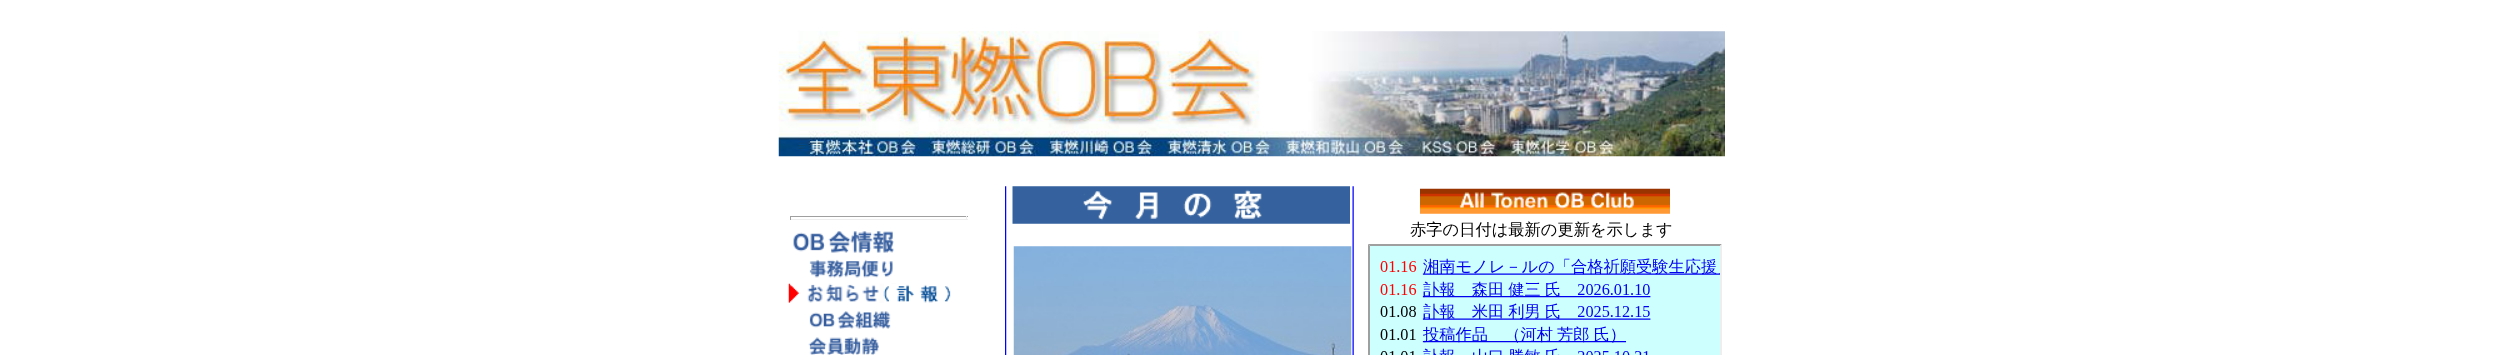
<?xml version="1.0" encoding="UTF-8"?>
<svg xmlns="http://www.w3.org/2000/svg" width="2505" height="355">
    <rect width="100%" height="100%" fill="#FFFFFF"/>
    <image x="778" y="31" width="947" height="126" href="img_01.png"/>
    <rect x="790" y="216" width="178" height="1" fill="#9F9F9F"/>
    <rect x="966" y="216" width="1" height="4" fill="#EEEEEE"/>
    <rect x="790" y="219" width="178" height="1" fill="#EEEEEE"/>
    <rect x="790" y="216" width="1" height="4" fill="#9F9F9F"/>
    <image x="793" y="231" width="101" height="22" href="img_02.png"/>
    <image x="809" y="259" width="84" height="19" href="img_03.png"/>
    <image x="788" y="283" width="163" height="20" href="img_04.png"/>
    <image x="809" y="311" width="82" height="18" href="img_05.png"/>
    <image x="808" y="337" width="71" height="18" href="img_06.png"/>
    <image x="1005" y="186" width="2" height="169" href="img_07.png"/>
    <image x="1012" y="186" width="338" height="38" href="img_08.png"/>
    <image x="1352" y="186" width="2" height="169" href="img_09.png"/>
    <image x="1013" y="246" width="339" height="109" href="img_10.png"/>
    <image x="1420" y="188" width="250" height="26" href="img_11.png"/>
    <text x="1410" y="235" font-family="WenQuanYi Zen Hei" font-size="16.25" font-weight="500" fill="#000000">赤字の日付は最新の更新を示します</text>
    <path d="M 1368 244 H 1722 L 1720 246 H 1370 Z" fill="#9F9F9F"/>
    <path d="M 1368 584 V 244 L 1370 246 V 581 Z" fill="#9F9F9F"/>
    <image x="1370" y="246" width="350" height="109" href="img_12.png"/>
    <path d="M 1722 244 V 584 L 1720 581 V 246 Z" fill="#EEEEEE"/>
</svg>
